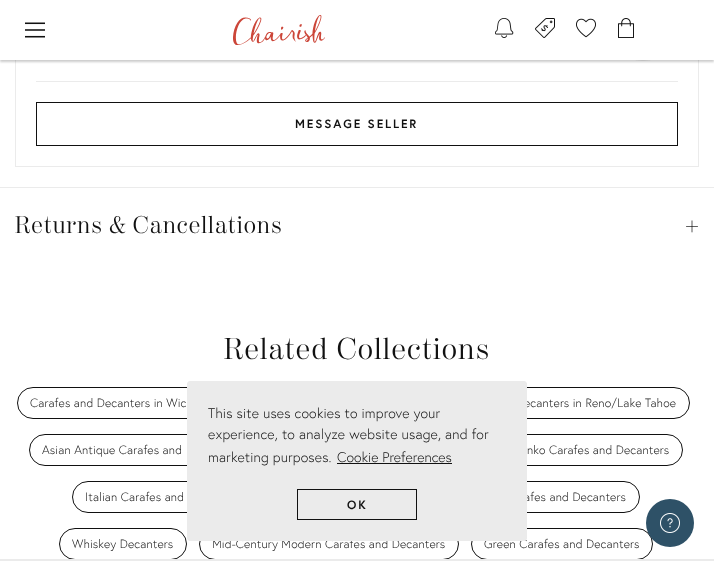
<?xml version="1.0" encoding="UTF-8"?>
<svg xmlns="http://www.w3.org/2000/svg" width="714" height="561">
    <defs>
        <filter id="blur1" x="-50%" y="-200%" width="200%" height="500%"><feGaussianBlur stdDeviation="1"/></filter>
    </defs>
    <rect width="100%" height="100%" fill="#FFFFFF"/>
    <rect x="15.5" y="-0.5" width="683" height="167" fill="none" stroke="#EBEBEB"/>
    <circle cx="643" cy="26" r="34.5" fill="none" stroke="#EBEBEB"/>
    <rect x="0" y="2" width="714" height="60" fill="#000000" fill-opacity="0.2" filter="url(#blur1)"/>
    <rect x="0" y="0" width="714" height="60" fill="#FFFFFF"/>
    <image x="25" y="22" width="20" height="16" href="img_01.png"/>
    <image x="233" y="15" width="92" height="30" href="img_02.png"/>
    <image x="495" y="18" width="19" height="20" href="img_03.png"/>
    <image x="535" y="18" width="20" height="20" href="img_04.png"/>
    <image x="576" y="18" width="20" height="20" href="img_05.png"/>
    <image x="618" y="18" width="16" height="20" href="img_06.png"/>
    <rect x="36" y="81" width="642" height="1" fill="#EBEBEB"/>
    <rect x="36.5" y="102.5" width="641" height="43" fill="none" stroke="#111111"/>
    <text x="295" y="128" font-family="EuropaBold" font-size="12" font-weight="700" letter-spacing="1.9" fill="#111111">MESSAGE SELLER</text>
    <rect x="0" y="187" width="714" height="1" fill="#EBEBEB"/>
    <text x="15" y="233" font-family="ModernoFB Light" font-size="24" font-weight="300" letter-spacing="1" fill="#111111">Returns &amp; Cancellations</text>
    <image x="686" y="220" width="12" height="13" href="img_07.png"/>
    <text x="224" y="359" font-family="ModernoFB Light" font-size="30" font-weight="300" letter-spacing="1.25" fill="#111111">Related Collections</text>
    <rect x="17.5" y="387.5" width="202" height="31" rx="15.5" fill="none" stroke="#111111"/>
    <text x="30" y="407" font-family="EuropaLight" font-size="12" font-weight="300" letter-spacing="0.15" fill="#111111">Carafes and Decanters in Wic</text>
    <rect x="436.5" y="387.5" width="253" height="31" rx="15.5" fill="none" stroke="#111111"/>
    <text x="524" y="407" font-family="EuropaLight" font-size="12" font-weight="300" letter-spacing="0.15" fill="#111111">ecanters in Reno/Lake Tahoe</text>
    <rect x="29.5" y="434.5" width="222" height="31" rx="15.5" fill="none" stroke="#111111"/>
    <text x="42" y="454" font-family="EuropaLight" font-size="12" font-weight="300" letter-spacing="0.15" fill="#111111">Asian Antique Carafes and</text>
    <rect x="498.5" y="434.5" width="184" height="31" rx="15.5" fill="none" stroke="#111111"/>
    <text x="527" y="454" font-family="EuropaLight" font-size="12" font-weight="300" letter-spacing="0.15" fill="#111111">nko Carafes and Decanters</text>
    <rect x="72.5" y="481.5" width="182" height="31" rx="15.5" fill="none" stroke="#111111"/>
    <text x="85" y="501" font-family="EuropaLight" font-size="12" font-weight="300" letter-spacing="0.15" fill="#111111">Italian Carafes and</text>
    <rect x="449.5" y="481.5" width="190" height="31" rx="15.5" fill="none" stroke="#111111"/>
    <text x="524" y="501" font-family="EuropaLight" font-size="12" font-weight="300" letter-spacing="0.15" fill="#111111">afes and Decanters</text>
    <rect x="59.5" y="528.5" width="127" height="31" rx="15.5" fill="none" stroke="#111111"/>
    <text x="72" y="548" font-family="EuropaLight" font-size="12" font-weight="300" letter-spacing="0.15" fill="#111111">Whiskey Decanters</text>
    <rect x="199.5" y="528.5" width="259" height="31" rx="15.5" fill="none" stroke="#111111"/>
    <text x="212" y="548" font-family="EuropaLight" font-size="12" font-weight="300" letter-spacing="0.15" fill="#111111">Mid-Century Modern Carafes and Decanters</text>
    <rect x="471.5" y="528.5" width="181" height="31" rx="15.5" fill="none" stroke="#111111"/>
    <text x="484" y="548" font-family="EuropaLight" font-size="12" font-weight="300" letter-spacing="0.15" fill="#111111">Green Carafes and Decanters</text>
    <rect x="0" y="559" width="714" height="2" fill="#EBEBEB"/>
    <rect x="187.5" y="381.5" width="339" height="159" rx="2.5" fill="#EBEBEB" stroke="#EBEBEB"/>
    <text font-family="EuropaLight" font-size="14" font-weight="300" letter-spacing="0.15" fill="#111111">
        <tspan x="208" y="418">This site uses cookies to improve your</tspan>
        <tspan x="208" y="439">experience, to analyze website usage, and for</tspan>
        <tspan x="208" y="462">marketing purposes.</tspan>
    </text>
    <text x="337" y="462" font-family="EuropaLight" font-size="14" font-weight="300" fill="#111111">Cookie Preferences</text>
    <rect x="337" y="463" width="115" height="1" fill="#111111"/>
    <rect x="297.5" y="489.5" width="119" height="30" fill="none" stroke="#111111"/>
    <text x="347" y="509" font-family="EuropaBold" font-size="12" font-weight="700" letter-spacing="1.9" fill="#111111">OK</text>
    <circle cx="670" cy="523" r="24" fill="#2E5167"/>
    <image x="660" y="513" width="20" height="20" href="img_08.png"/>
</svg>
